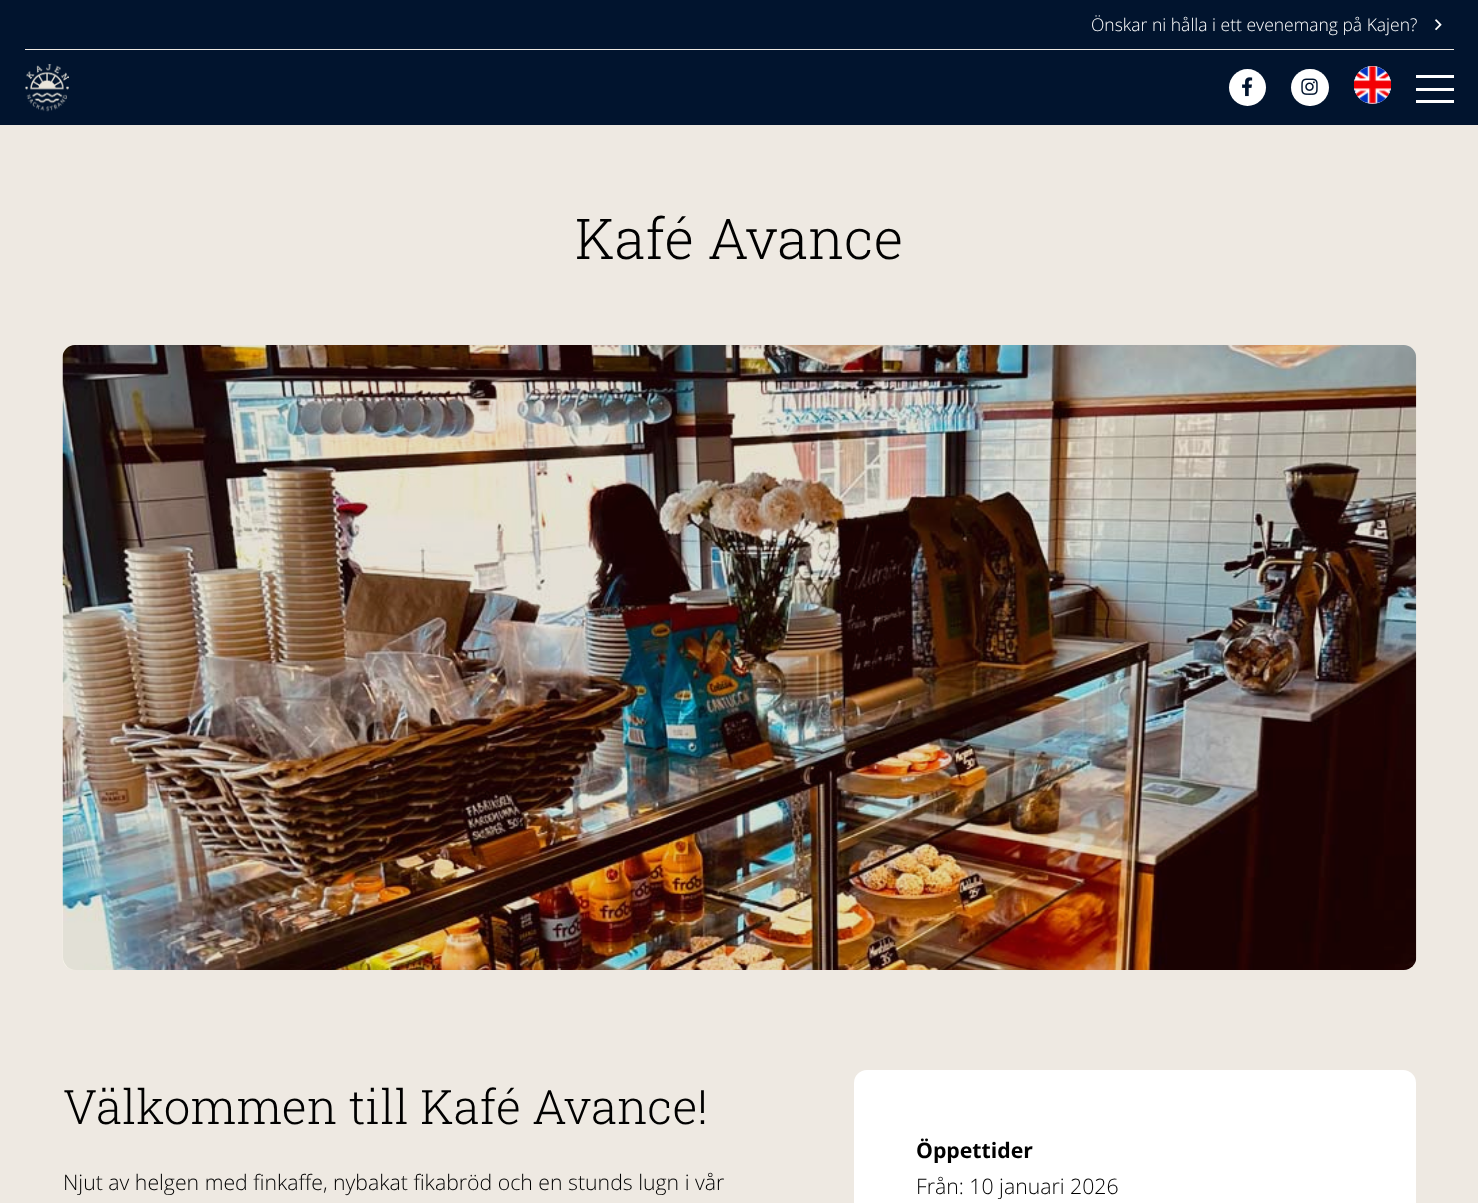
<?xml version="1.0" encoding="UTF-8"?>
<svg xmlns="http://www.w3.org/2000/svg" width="1478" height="1203">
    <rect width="100%" height="100%" fill="#EEE9E2"/>
    <rect x="0" y="0" width="1478" height="125" fill="#01142E"/>
    <rect x="25" y="49" width="1429" height="1" fill="#EEE9E2"/>
    <text x="1091" y="31" font-family="Open Sans" font-size="17.5" font-weight="300" fill="#FFFFFF">Önskar ni hålla i ett evenemang på Kajen?</text>
    <image x="1435" y="19" width="7" height="12" href="img_01.png"/>
    <image x="25" y="64" width="44" height="48" href="img_02.png"/>
    <circle cx="1247.5" cy="87.5" r="18.5" fill="#FFFFFF"/>
    <image x="1242" y="77" width="11" height="20" href="img_03.png"/>
    <rect x="1291" y="69" width="38" height="37" rx="18.5" fill="#FFFFFF"/>
    <image x="1301" y="78" width="17" height="17" href="img_04.png"/>
    <rect x="1354" y="66" width="37" height="38" rx="18.5" fill="#FFFFFF"/>
    <image x="1353" y="66" width="39" height="38" href="img_05.png"/>
    <rect x="1416" y="75" width="38" height="3" fill="#FFFFFF"/>
    <rect x="1416" y="88" width="38" height="3" fill="#FFFFFF"/>
    <rect x="1416" y="100" width="38" height="3" fill="#FFFFFF"/>
    <text x="575" y="259" font-family="Roboto Slab" font-size="56.25" font-weight="300" fill="#000000">Kafé Avance</text>
    <image x="62" y="345" width="1355" height="625" href="img_06.png"/>
    <rect x="63" y="345" width="1353" height="625" rx="13" fill="#111111" fill-opacity="0.1"/>
    <text x="63" y="1124" font-family="Roboto Slab" font-size="47.5" font-weight="300" fill="#000000">Välkommen till Kafé Avance!</text>
    <text x="63" y="1190" font-family="Open Sans" font-size="21.25" font-weight="300" fill="#000000">Njut av helgen med finkaffe, nybakat fikabröd och en stunds lugn i vår</text>
    <rect x="854" y="1070" width="562" height="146" rx="13" fill="#FFFFFF"/>
    <text x="916" y="1158" font-family="Open Sans" font-size="21.25" font-weight="700" fill="#000000">Öppettider</text>
    <text x="916" y="1194" font-family="Open Sans" font-size="21.25" font-weight="300" fill="#000000">Från: 10 januari 2026</text>
</svg>
